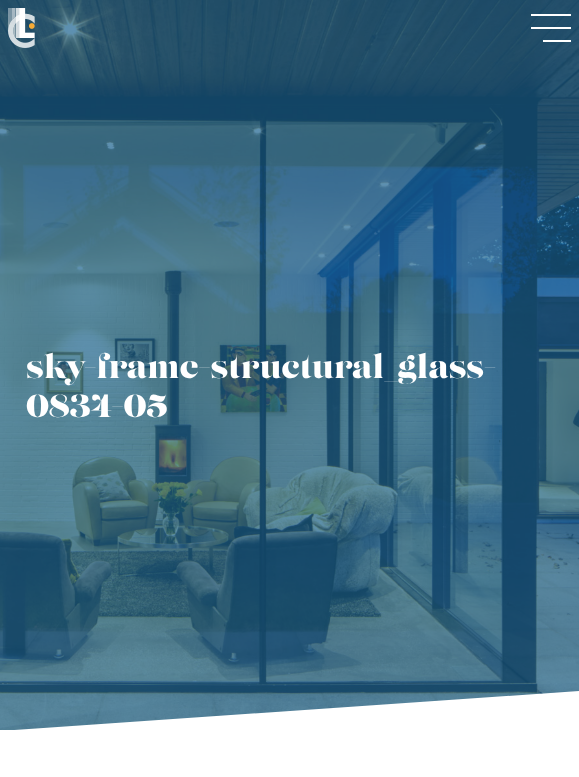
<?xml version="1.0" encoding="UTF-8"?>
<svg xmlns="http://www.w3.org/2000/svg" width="579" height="777">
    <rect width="100%" height="100%" fill="#FFFFFF"/>
    <image x="0" y="0" width="579" height="730" href="img_02.png"/>
    <image x="8" y="8" width="27" height="40" href="img_01.png"/>
    <rect x="531" y="14" width="40" height="2" fill="#FFFFFF"/>
    <rect x="531" y="27" width="40" height="2" fill="#FFFFFF"/>
    <rect x="543" y="40" width="28" height="2" fill="#FFFFFF"/>
    <text font-family="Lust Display" font-size="32" fill="#FFFFFF">
        <tspan x="26" y="378">sky-frame-structural_glass-</tspan>
        <tspan x="26" y="417">0834-05</tspan>
    </text>
    <path d="M 579 731 H 0 L 579 691 Z" fill="#FFFFFF"/>
</svg>
